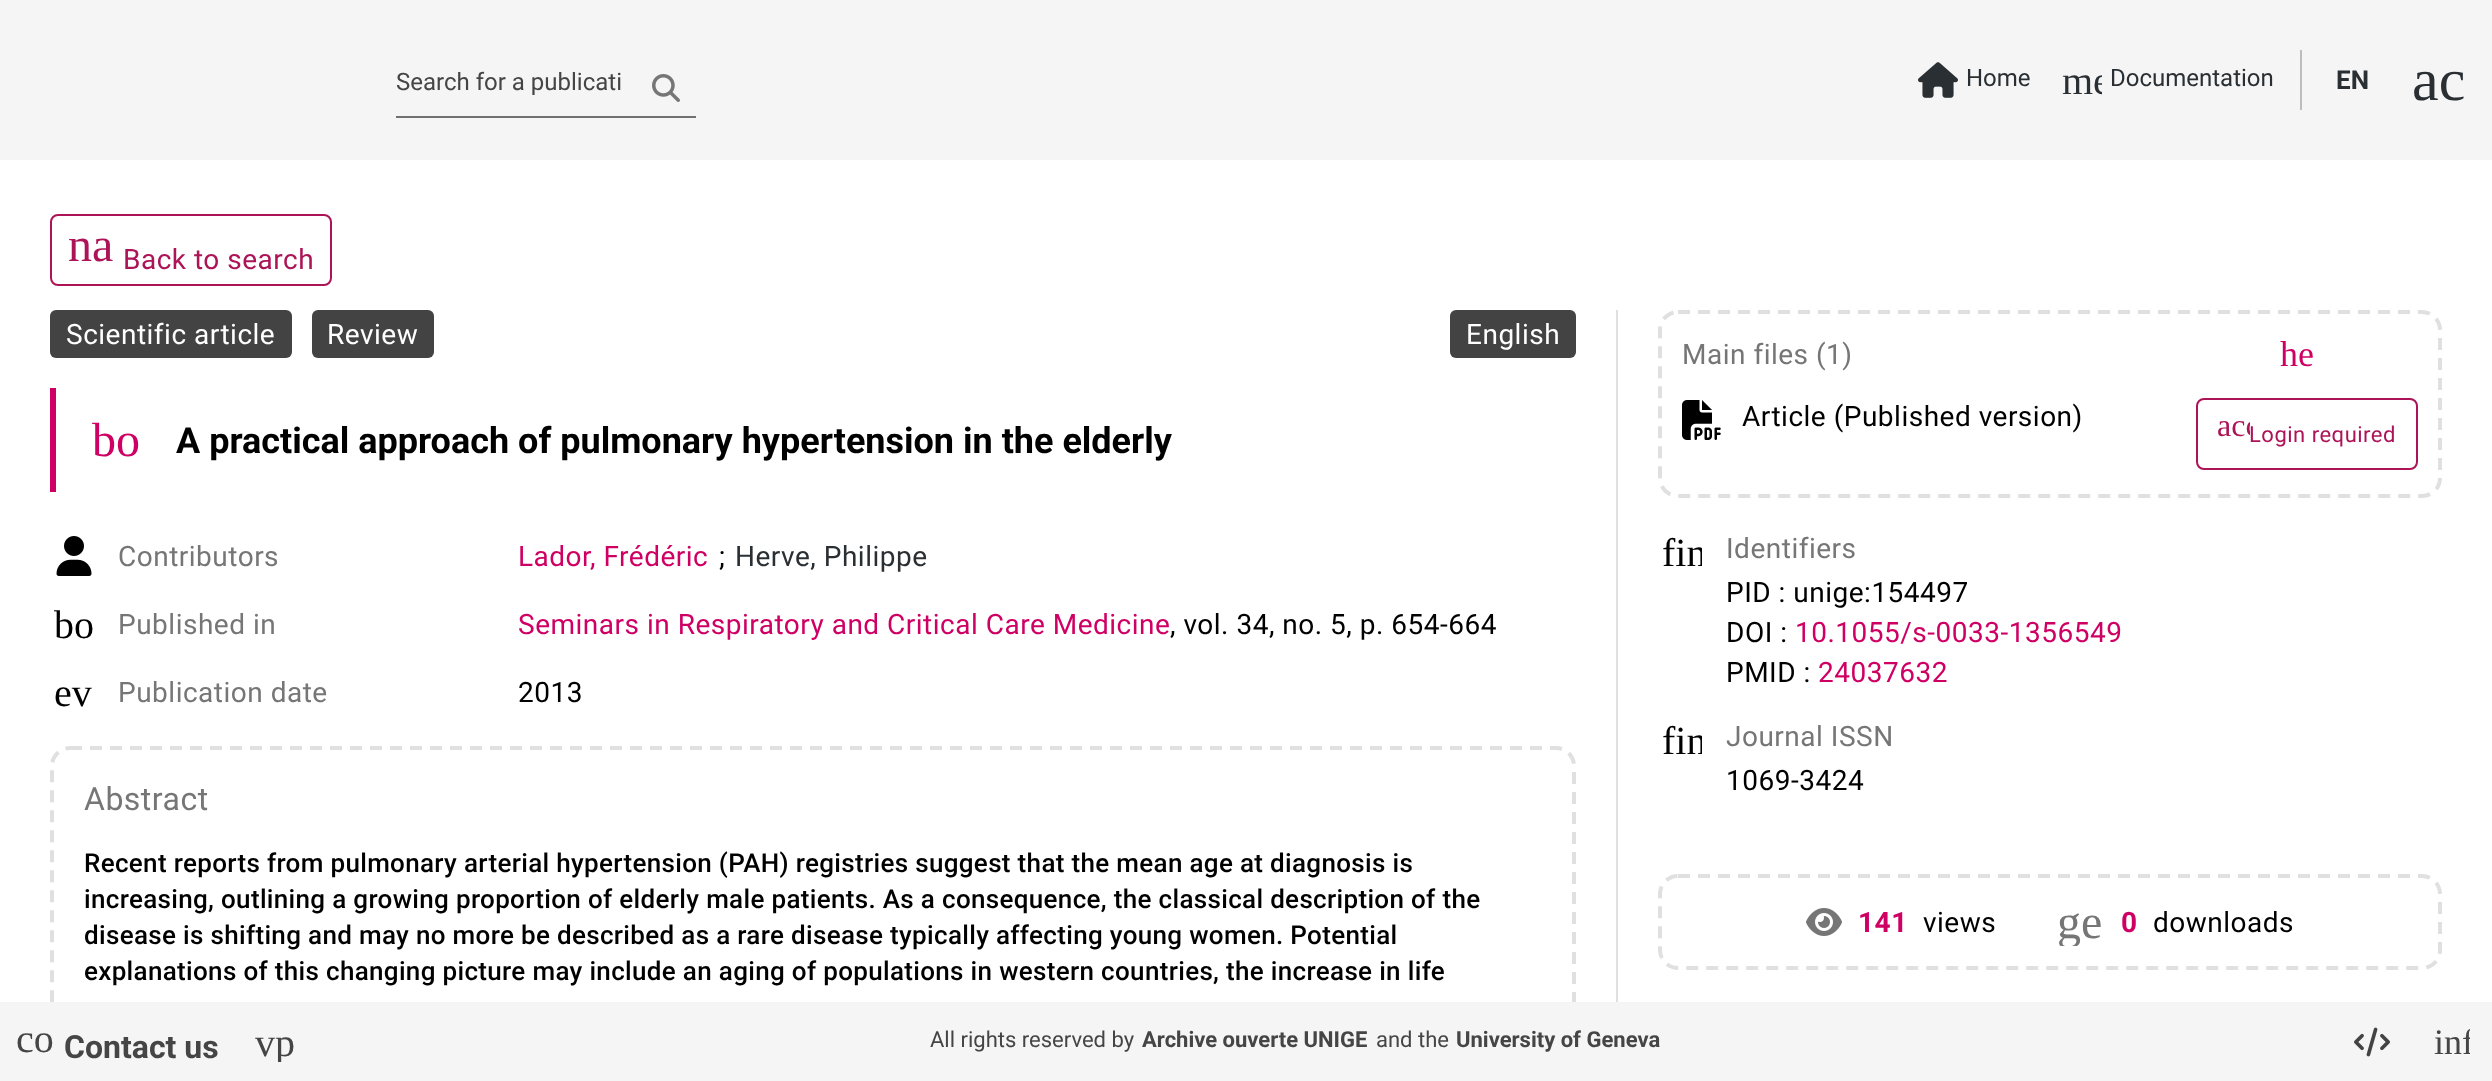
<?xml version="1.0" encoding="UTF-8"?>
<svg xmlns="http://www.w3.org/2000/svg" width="2492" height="1081">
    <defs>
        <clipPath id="clip1"><rect x="2062" y="60" width="40" height="40"/></clipPath>
        <clipPath id="clip2"><rect x="2218" y="410" width="32" height="32"/></clipPath>
        <clipPath id="clip3"><rect x="1662" y="532" width="40" height="40"/></clipPath>
        <clipPath id="clip4"><rect x="1662" y="720" width="40" height="40"/></clipPath>
        <clipPath id="clip5"><rect x="2056" y="898" width="48" height="48"/></clipPath>
        <clipPath id="clip6"><rect x="254" y="1022" width="40" height="40"/></clipPath>
        <clipPath id="clip7"><rect x="2434" y="1024" width="36" height="36"/></clipPath>
    </defs>
    <rect width="100%" height="100%" fill="#FFFFFF"/>
    <rect x="0" y="0" width="2492" height="160" fill="#F5F5F5"/>
    <text x="396" y="90" font-family="Roboto" font-size="24" fill="#454545">Search for a publicati</text>
    <image x="652" y="74" width="28" height="28" href="img_01.png"/>
    <rect x="396" y="116" width="300" height="2" fill="#717171"/>
    <image x="1918" y="62" width="40" height="36" href="img_02.png"/>
    <text x="1966" y="86" font-family="Roboto" font-size="24" fill="#292F33">Home</text>
    <g clip-path="url(#clip1)">
        <text x="2062" y="94" font-family="Liberation Serif" font-size="40" fill="#292F33">me</text>
    </g>
    <text x="2110" y="86" font-family="Roboto" font-size="24" fill="#292F33">Documentation</text>
    <rect x="2300" y="50" width="2" height="60" fill="#BDBDBD"/>
    <text x="2336" y="89" font-family="Roboto" font-size="26" font-weight="700" fill="#292F33">EN</text>
    <text x="2412" y="100" font-family="Liberation Serif" font-size="60" fill="#292F33">ac</text>
    <rect x="51" y="215" width="280" height="70" rx="7" fill="none" stroke="#AD1457" stroke-width="2"/>
    <text x="68" y="261" font-family="Liberation Serif" font-size="48" fill="#AD1457">na</text>
    <text x="123" y="269" font-family="Roboto" font-size="28" letter-spacing="0.5" fill="#AD1457">Back to search</text>
    <rect x="1616" y="310" width="2" height="692" fill="#E0E0E0"/>
    <rect x="50" y="310" width="242" height="48" rx="6" fill="#434343"/>
    <text x="66" y="344" font-family="Roboto" font-size="28" letter-spacing="0.5" fill="#FFFFFF">Scientific article</text>
    <rect x="312" y="310" width="122" height="48" rx="6" fill="#434343"/>
    <text x="327" y="344" font-family="Roboto" font-size="28" letter-spacing="0.5" fill="#FFFFFF">Review</text>
    <rect x="1450" y="310" width="126" height="48" rx="6" fill="#434343"/>
    <text x="1466" y="344" font-family="Roboto" font-size="28" letter-spacing="0.5" fill="#FFFFFF">English</text>
    <rect x="50" y="388" width="6" height="104" fill="#CF0063"/>
    <text x="92" y="456" font-family="Liberation Serif" font-size="48" fill="#CF0063">bo</text>
    <text x="176" y="453" font-family="Roboto" font-size="36" font-weight="700" fill="#000000">A practical approach of pulmonary hypertension in the elderly</text>
    <image x="56" y="536" width="36" height="40" href="img_03.png"/>
    <text x="118" y="566" font-family="Roboto" font-size="28" letter-spacing="0.5" fill="#767676">Contributors</text>
    <text x="518" y="566" font-family="Roboto" font-size="28" letter-spacing="0.5" fill="#CF0063">Lador</text>
    <text x="590" y="566" font-family="Roboto" font-size="28" letter-spacing="0.5" fill="#CF0063">, Frédéric</text>
    <text x="719" y="566" font-family="Roboto" font-size="28" letter-spacing="0.5" fill="#000000">;</text>
    <text x="735" y="566" font-family="Roboto" font-size="28" letter-spacing="0.5" fill="#292F33">Herve, Philippe</text>
    <text x="54" y="638" font-family="Liberation Serif" font-size="40" fill="#000000">bo</text>
    <text x="118" y="634" font-family="Roboto" font-size="28" letter-spacing="0.5" fill="#767676">Published in</text>
    <text x="518" y="634" font-family="Roboto" font-size="28" letter-spacing="0.5" fill="#CF0063">Seminars in Respiratory and Critical Care Medicine</text>
    <text x="1170" y="634" font-family="Roboto" font-size="28" letter-spacing="0.5" fill="#000000">, vol. 34, no. 5, p. 654-664</text>
    <text x="54" y="706" font-family="Liberation Serif" font-size="40" fill="#000000">ev</text>
    <text x="118" y="702" font-family="Roboto" font-size="28" letter-spacing="0.5" fill="#767676">Publication date</text>
    <text x="518" y="702" font-family="Roboto" font-size="28" letter-spacing="0.5" fill="#000000">2013</text>
    <path d="M 70 748 H 1556 C 1566 748 1574 756 1574 766 V 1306 C 1574 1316 1566 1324 1556 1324 H 70 C 60 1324 52 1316 52 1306 V 766 C 52 756 60 748 70 748 Z" fill="none" stroke="#E0E0E0" stroke-width="4" stroke-dasharray="12 8"/>
    <text x="84" y="810" font-family="Roboto" font-size="32" letter-spacing="0.5" fill="#767676">Abstract</text>
    <text font-family="Roboto" font-size="26" font-weight="500" letter-spacing="0.33" fill="#000000">
        <tspan x="84" y="872">Recent reports from pulmonary arterial hypertension (PAH) registries suggest that the mean age at diagnosis is</tspan>
        <tspan x="84" y="908">increasing, outlining a growing proportion of elderly male patients. As a consequence, the classical description of the</tspan>
        <tspan x="84" y="944">disease is shifting and may no more be described as a rare disease typically affecting young women. Potential</tspan>
        <tspan x="84" y="980">explanations of this changing picture may include an aging of populations in western countries, the increase in life</tspan>
    </text>
    <path d="M 1678 312 H 2422 C 2432 312 2440 320 2440 330 V 478 C 2440 488 2432 496 2422 496 H 1678 C 1668 496 1660 488 1660 478 V 330 C 1660 320 1668 312 1678 312 Z" fill="none" stroke="#E0E0E0" stroke-width="4" stroke-dasharray="12 8"/>
    <text x="1682" y="364" font-family="Roboto" font-size="28" letter-spacing="0.5" fill="#767676">Main files (1)</text>
    <text x="2280" y="366" font-family="Liberation Serif" font-size="36" fill="#CF0063">he</text>
    <image x="1682" y="400" width="39" height="40" href="img_04.png"/>
    <text x="1742" y="426" font-family="Roboto" font-size="28" letter-spacing="0.5" fill="#000000">Article (Published version)</text>
    <rect x="2197" y="399" width="220" height="70" rx="7" fill="none" stroke="#AD1457" stroke-width="2"/>
    <g clip-path="url(#clip2)">
        <text x="2217" y="436" font-family="Liberation Serif" font-size="32" fill="#AD1457">acc</text>
    </g>
    <text x="2249" y="442" font-family="Roboto" font-size="22" letter-spacing="0.5" fill="#AD1457">Login required</text>
    <g clip-path="url(#clip3)">
        <text x="1662" y="566" font-family="Liberation Serif" font-size="40" fill="#000000">fin</text>
    </g>
    <text x="1726" y="558" font-family="Roboto" font-size="28" letter-spacing="0.5" fill="#767676">Identifiers</text>
    <text font-family="Roboto" font-size="28" letter-spacing="0.5" fill="#000000">
        <tspan x="1726" y="602">PID : unige:154497</tspan>
        <tspan x="1726" y="642">DOI :</tspan>
    </text>
    <text x="1795" y="642" font-family="Roboto" font-size="28" letter-spacing="0.5" fill="#CF0063">10.1055/s-0033-1356549</text>
    <text x="1726" y="682" font-family="Roboto" font-size="28" letter-spacing="0.5" fill="#000000">PMID :</text>
    <text x="1818" y="682" font-family="Roboto" font-size="28" letter-spacing="0.5" fill="#CF0063">24037632</text>
    <g clip-path="url(#clip4)">
        <text x="1662" y="754" font-family="Liberation Serif" font-size="40" fill="#000000">fin</text>
    </g>
    <text x="1726" y="746" font-family="Roboto" font-size="28" letter-spacing="0.5" fill="#767676">Journal ISSN</text>
    <text x="1726" y="790" font-family="Roboto" font-size="28" letter-spacing="0.5" fill="#000000">1069-3424</text>
    <path d="M 1678 876 H 2422 C 2432 876 2440 884 2440 894 V 950 C 2440 960 2432 968 2422 968 H 1678 C 1668 968 1660 960 1660 950 V 894 C 1660 884 1668 876 1678 876 Z" fill="none" stroke="#E0E0E0" stroke-width="4" stroke-dasharray="12 8"/>
    <image x="1806" y="908" width="36" height="28" href="img_05.png"/>
    <text x="1858" y="932" font-family="Roboto" font-size="28" font-weight="700" letter-spacing="0.5" fill="#CF0063">141</text>
    <text x="1923" y="932" font-family="Roboto" font-size="28" letter-spacing="0.5" fill="#000000">views</text>
    <g clip-path="url(#clip5)">
        <text x="2057" y="938" font-family="Liberation Serif" font-size="48" fill="#767676">ge</text>
    </g>
    <text x="2121" y="932" font-family="Roboto" font-size="28" font-weight="700" letter-spacing="0.5" fill="#CF0063">0</text>
    <text x="2153" y="932" font-family="Roboto" font-size="28" letter-spacing="0.5" fill="#000000">downloads</text>
    <rect x="0" y="1002" width="2492" height="79" fill="#F5F5F5"/>
    <text x="16" y="1052" font-family="Liberation Serif" font-size="40" fill="#454545">co</text>
    <text x="64" y="1058" font-family="Roboto" font-size="32" font-weight="700" fill="#454545">Contact us</text>
    <g clip-path="url(#clip6)">
        <text x="255" y="1056" font-family="Liberation Serif" font-size="40" fill="#454545">vp</text>
    </g>
    <text x="930" y="1047" font-family="Roboto" font-size="22" fill="#454545">All rights reserved by</text>
    <text x="1142" y="1047" font-family="Roboto" font-size="22" font-weight="700" fill="#454545">Archive ouverte UNIGE</text>
    <text x="1376" y="1047" font-family="Roboto" font-size="22" fill="#454545">and the</text>
    <text x="1456" y="1047" font-family="Roboto" font-size="22" font-weight="700" fill="#454545">University of Geneva</text>
    <image x="2354" y="1027" width="36" height="30" href="img_06.png"/>
    <g clip-path="url(#clip7)">
        <text x="2434" y="1054" font-family="Liberation Serif" font-size="36" fill="#454545">inf</text>
    </g>
</svg>
